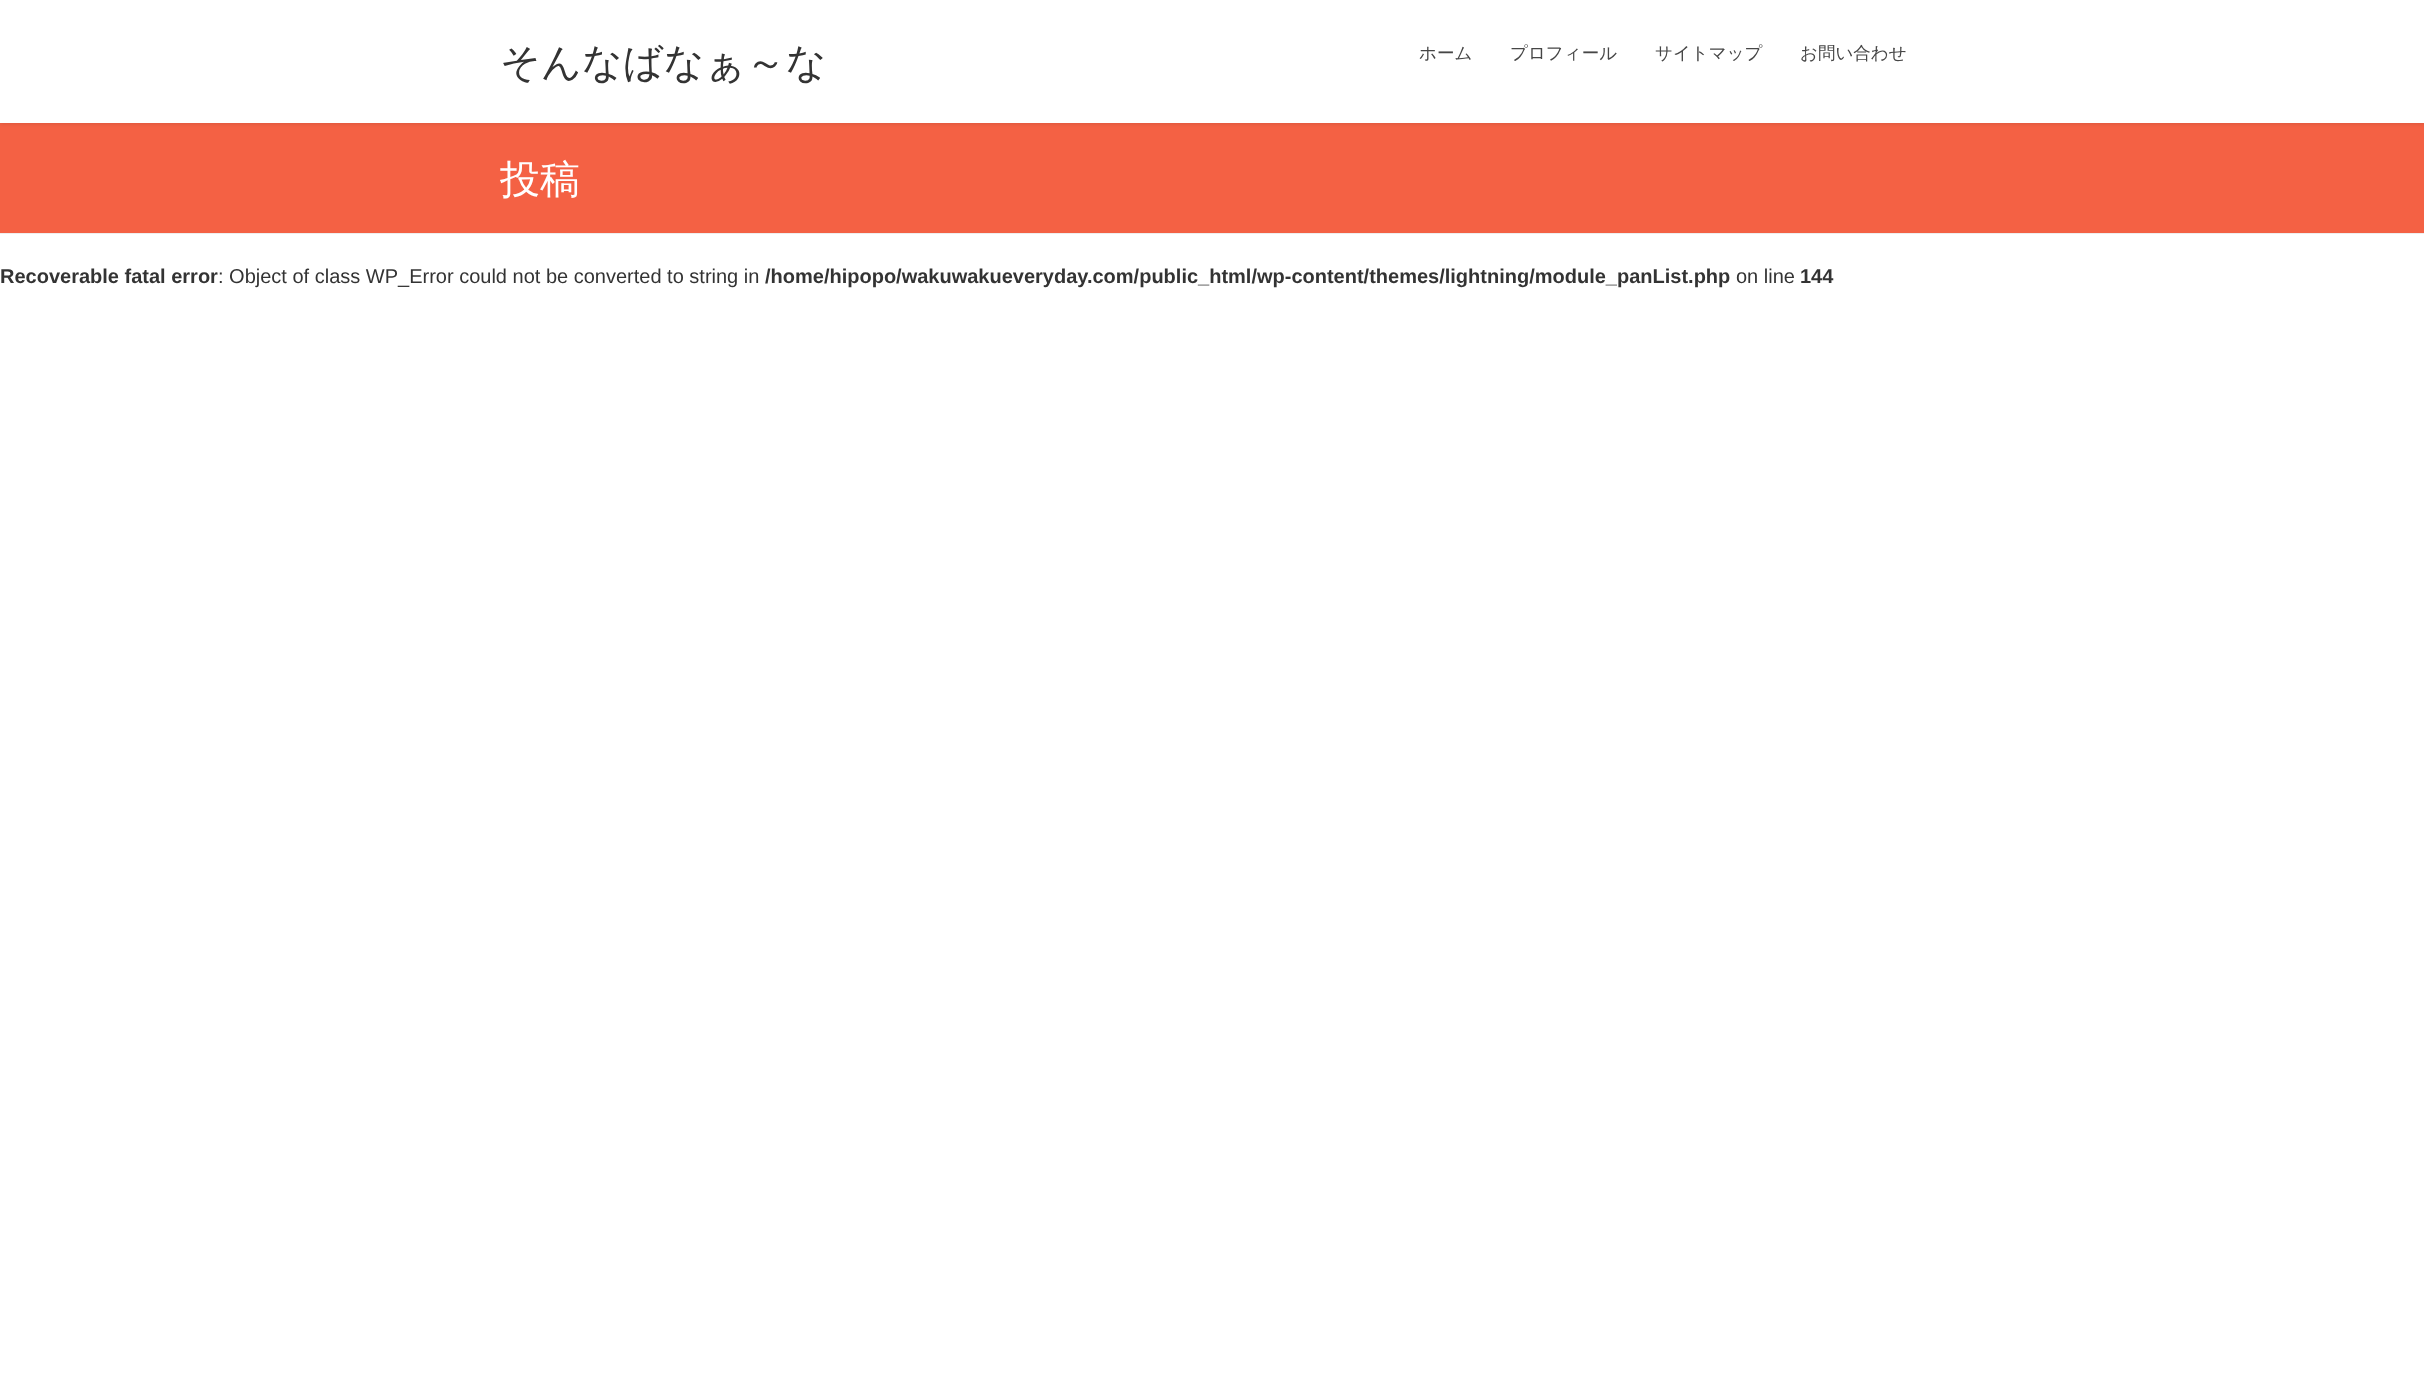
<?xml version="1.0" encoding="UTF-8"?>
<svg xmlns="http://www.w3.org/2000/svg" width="2424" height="1391">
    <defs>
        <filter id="blur1" x="-50%" y="-200%" width="200%" height="500%"><feGaussianBlur stdDeviation="2"/></filter>
    </defs>
    <rect width="100%" height="100%" fill="#FFFFFF"/>
    <rect x="0" y="123" width="2424" height="110" fill="#F46144"/>
    <rect x="0" y="1" width="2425" height="123" fill="#000000" fill-opacity="0.1" filter="url(#blur1)"/>
    <rect x="0" y="0" width="2424" height="123" fill="#FFFFFF"/>
    <text x="500" y="76" font-family="WenQuanYi Zen Hei" font-size="40" font-weight="500" fill="#333333">そんなばなぁ～な</text>
    <text x="1419" y="59" font-family="WenQuanYi Zen Hei" font-size="17.5" font-weight="500" fill="#464646">ホーム</text>
    <text x="1510" y="59" font-family="WenQuanYi Zen Hei" font-size="17.5" font-weight="500" fill="#464646">プロフィール</text>
    <text x="1655" y="59" font-family="WenQuanYi Zen Hei" font-size="17.5" font-weight="500" fill="#464646">サイトマップ</text>
    <text x="1800" y="59" font-family="WenQuanYi Zen Hei" font-size="17.5" font-weight="500" fill="#464646">お問い合わせ</text>
    <rect x="0" y="233" width="2424" height="1" fill="#EEEEEE"/>
    <text x="500" y="193" font-family="WenQuanYi Zen Hei" font-size="40" font-weight="500" fill="#FFFFFF">投稿</text>
    <text x="0" y="283" font-family="Liberation Sans" font-size="20" font-weight="700" fill="#333333">Recoverable fatal error</text>
    <text x="218" y="283" font-family="Liberation Sans" font-size="20" fill="#333333">: Object of class WP_Error could not be converted to string in</text>
    <text x="765" y="283" font-family="Liberation Sans" font-size="20" font-weight="700" fill="#333333">/home/hipopo/wakuwakueveryday.com/public_html/wp-content/themes/lightning/module_panList.php</text>
    <text x="1736" y="283" font-family="Liberation Sans" font-size="20" fill="#333333">on line</text>
    <text x="1800" y="283" font-family="Liberation Sans" font-size="20" font-weight="700" fill="#333333">144</text>
</svg>
